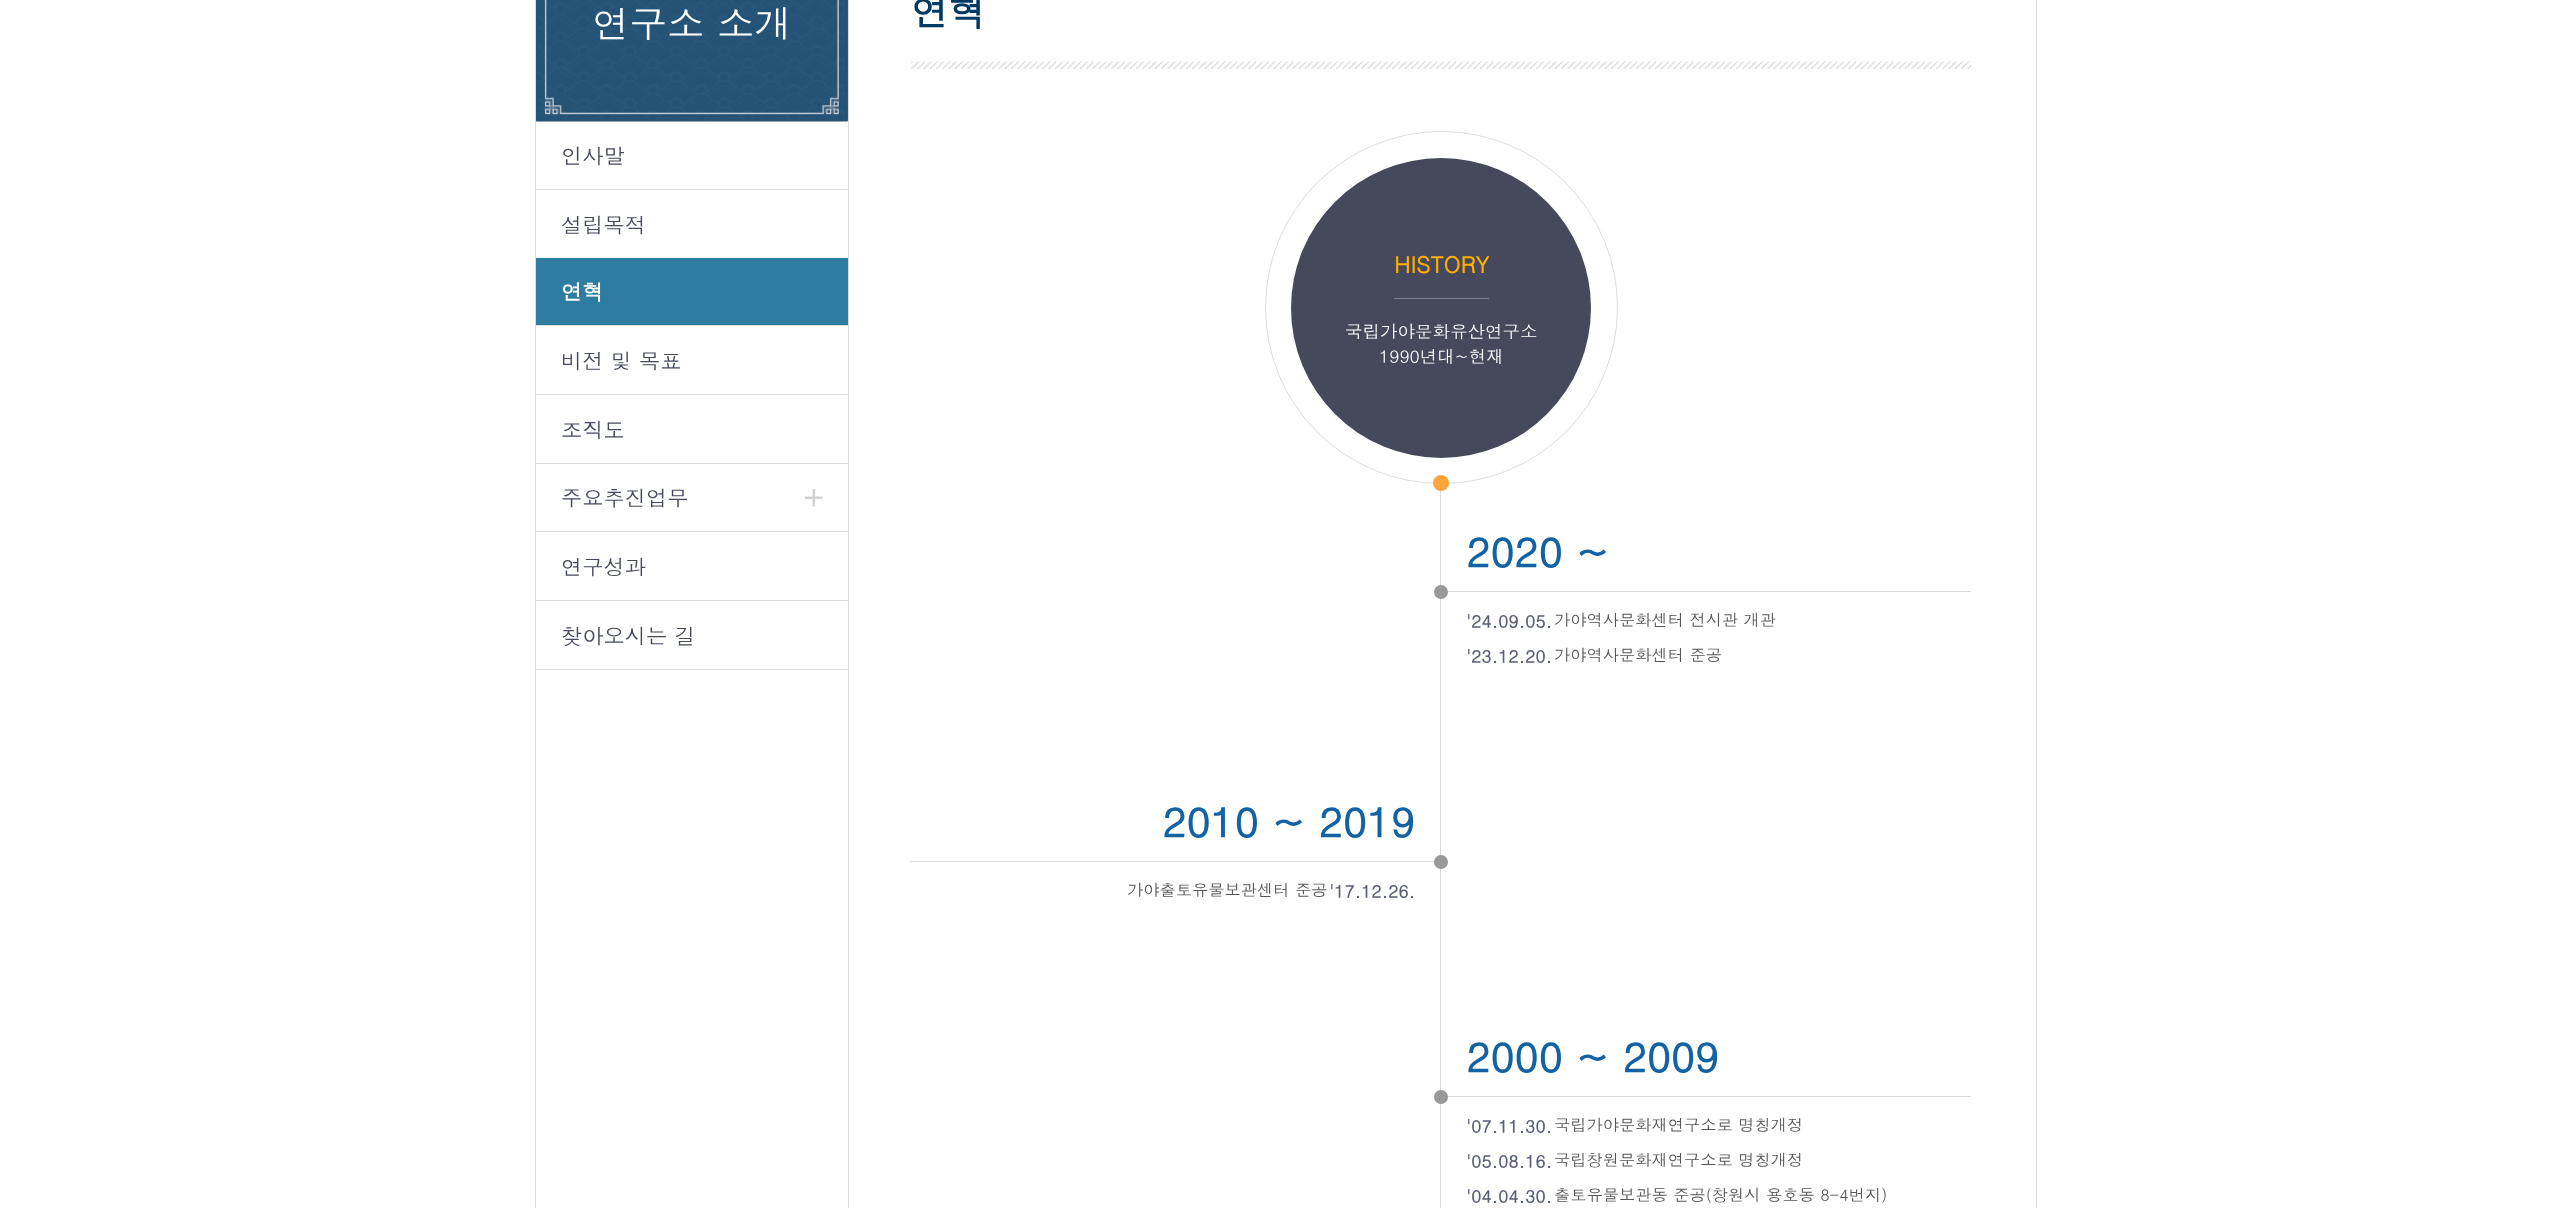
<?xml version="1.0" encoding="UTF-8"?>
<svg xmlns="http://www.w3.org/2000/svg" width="2572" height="1208">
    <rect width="100%" height="100%" fill="#FFFFFF"/>
    <rect x="2036" y="0" width="1" height="1208" fill="#DBDBDB"/>
    <rect x="535" y="0" width="1" height="1208" fill="#DBDBDB"/>
    <rect x="536" y="0" width="312" height="121" fill="#1363A4"/>
    <image x="536" y="0" width="312" height="122" href="img_01.png"/>
    <text x="592" y="38" font-family="Dotum" font-size="37.5" fill="#FFFFFF">연구소 소개</text>
    <text x="561" y="164" font-family="Dotum" font-size="21.25" fill="#45495B">인사말</text>
    <rect x="536" y="189" width="312" height="1" fill="#DBDBDB"/>
    <text x="561" y="233" font-family="Dotum" font-size="21.25" fill="#45495B">설립목적</text>
    <rect x="536" y="258" width="312" height="67" fill="#2F7CA2"/>
    <text x="561" y="300" font-family="Dotum" font-size="21.25" font-weight="700" fill="#FFFFFF">연혁</text>
    <rect x="536" y="325" width="312" height="1" fill="#DBDBDB"/>
    <text x="561" y="369" font-family="Dotum" font-size="21.25" fill="#45495B">비전 및 목표</text>
    <rect x="536" y="394" width="312" height="1" fill="#DBDBDB"/>
    <text x="561" y="438" font-family="Dotum" font-size="21.25" fill="#45495B">조직도</text>
    <rect x="536" y="463" width="312" height="1" fill="#DBDBDB"/>
    <image x="805" y="489" width="18" height="18" href="img_02.png"/>
    <text x="561" y="506" font-family="Dotum" font-size="21.25" fill="#45495B">주요추진업무</text>
    <rect x="536" y="531" width="312" height="1" fill="#DBDBDB"/>
    <text x="561" y="575" font-family="Dotum" font-size="21.25" fill="#45495B">연구성과</text>
    <rect x="536" y="600" width="312" height="1" fill="#DBDBDB"/>
    <rect x="536" y="669" width="312" height="1" fill="#DBDBDB"/>
    <text x="561" y="644" font-family="Dotum" font-size="21.25" fill="#45495B">찾아오시는 길</text>
    <rect x="848" y="0" width="1" height="1208" fill="#DBDBDB"/>
    <image x="911" y="61" width="1061" height="8" href="img_03.png"/>
    <text x="911" y="26" font-family="Dotum" font-size="37.5" font-weight="700" fill="#003964">연혁</text>
    <circle cx="1441.5" cy="307.5" r="176" fill="none" stroke="#DDDDDD"/>
    <circle cx="1441" cy="308" r="150" fill="#45495B"/>
    <rect x="1394" y="298" width="95" height="1" fill="#7D7F8A"/>
    <text x="1394" y="273" font-family="Dotum" font-size="22.5" font-weight="700" fill="#FFAE00">HISTORY</text>
    <text x="1345" y="338" font-family="Dotum" font-size="17.5" fill="#FFFFFF">국립가야문화유산연구소</text>
    <text x="1379" y="363" font-family="Dotum" font-size="17.5" fill="#FFFFFF">1990년대~현재</text>
    <rect x="1440" y="490" width="1" height="718" fill="#DBDBDB"/>
    <circle cx="1441" cy="483" r="8" fill="#FFA43B"/>
    <rect x="1441" y="591" width="530" height="1" fill="#DBDBDB"/>
    <text x="1466" y="568" font-family="Dotum" font-size="41.25" font-weight="700" fill="#1363A4">2020 ~</text>
    <circle cx="1441" cy="592" r="7" fill="#999999"/>
    <text x="1466" y="628" font-family="Dotum" font-size="17.5" font-weight="700" fill="#5B6078">'24.09.05.</text>
    <text x="1554" y="626" font-family="Dotum" font-size="16.25" fill="#555555">가야역사문화센터 전시관 개관</text>
    <text x="1466" y="663" font-family="Dotum" font-size="17.5" font-weight="700" fill="#5B6078">'23.12.20.</text>
    <text x="1554" y="661" font-family="Dotum" font-size="16.25" fill="#555555">가야역사문화센터 준공</text>
    <rect x="910" y="861" width="530" height="1" fill="#DBDBDB"/>
    <text x="1162" y="838" font-family="Dotum" font-size="41.25" font-weight="700" fill="#1363A4">2010 ~ 2019</text>
    <circle cx="1441" cy="862" r="7" fill="#999999"/>
    <text x="1127" y="896" font-family="Dotum" font-size="16.25" fill="#555555">가야출토유물보관센터 준공</text>
    <text x="1329" y="898" font-family="Dotum" font-size="17.5" font-weight="700" fill="#5B6078">'17.12.26.</text>
    <rect x="1441" y="1096" width="530" height="1" fill="#DBDBDB"/>
    <text x="1466" y="1073" font-family="Dotum" font-size="41.25" font-weight="700" fill="#1363A4">2000 ~ 2009</text>
    <circle cx="1441" cy="1097" r="7" fill="#999999"/>
    <text x="1466" y="1133" font-family="Dotum" font-size="17.5" font-weight="700" fill="#5B6078">'07.11.30.</text>
    <text x="1554" y="1131" font-family="Dotum" font-size="16.25" fill="#555555">국립가야문화재연구소로 명칭개정</text>
    <text x="1466" y="1168" font-family="Dotum" font-size="17.5" font-weight="700" fill="#5B6078">'05.08.16.</text>
    <text x="1554" y="1166" font-family="Dotum" font-size="16.25" fill="#555555">국립창원문화재연구소로 명칭개정</text>
    <text x="1466" y="1203" font-family="Dotum" font-size="17.5" font-weight="700" fill="#5B6078">'04.04.30.</text>
    <text x="1554" y="1201" font-family="Dotum" font-size="16.25" fill="#555555">출토유물보관동 준공(창원시 용호동 8-4번지)</text>
</svg>
